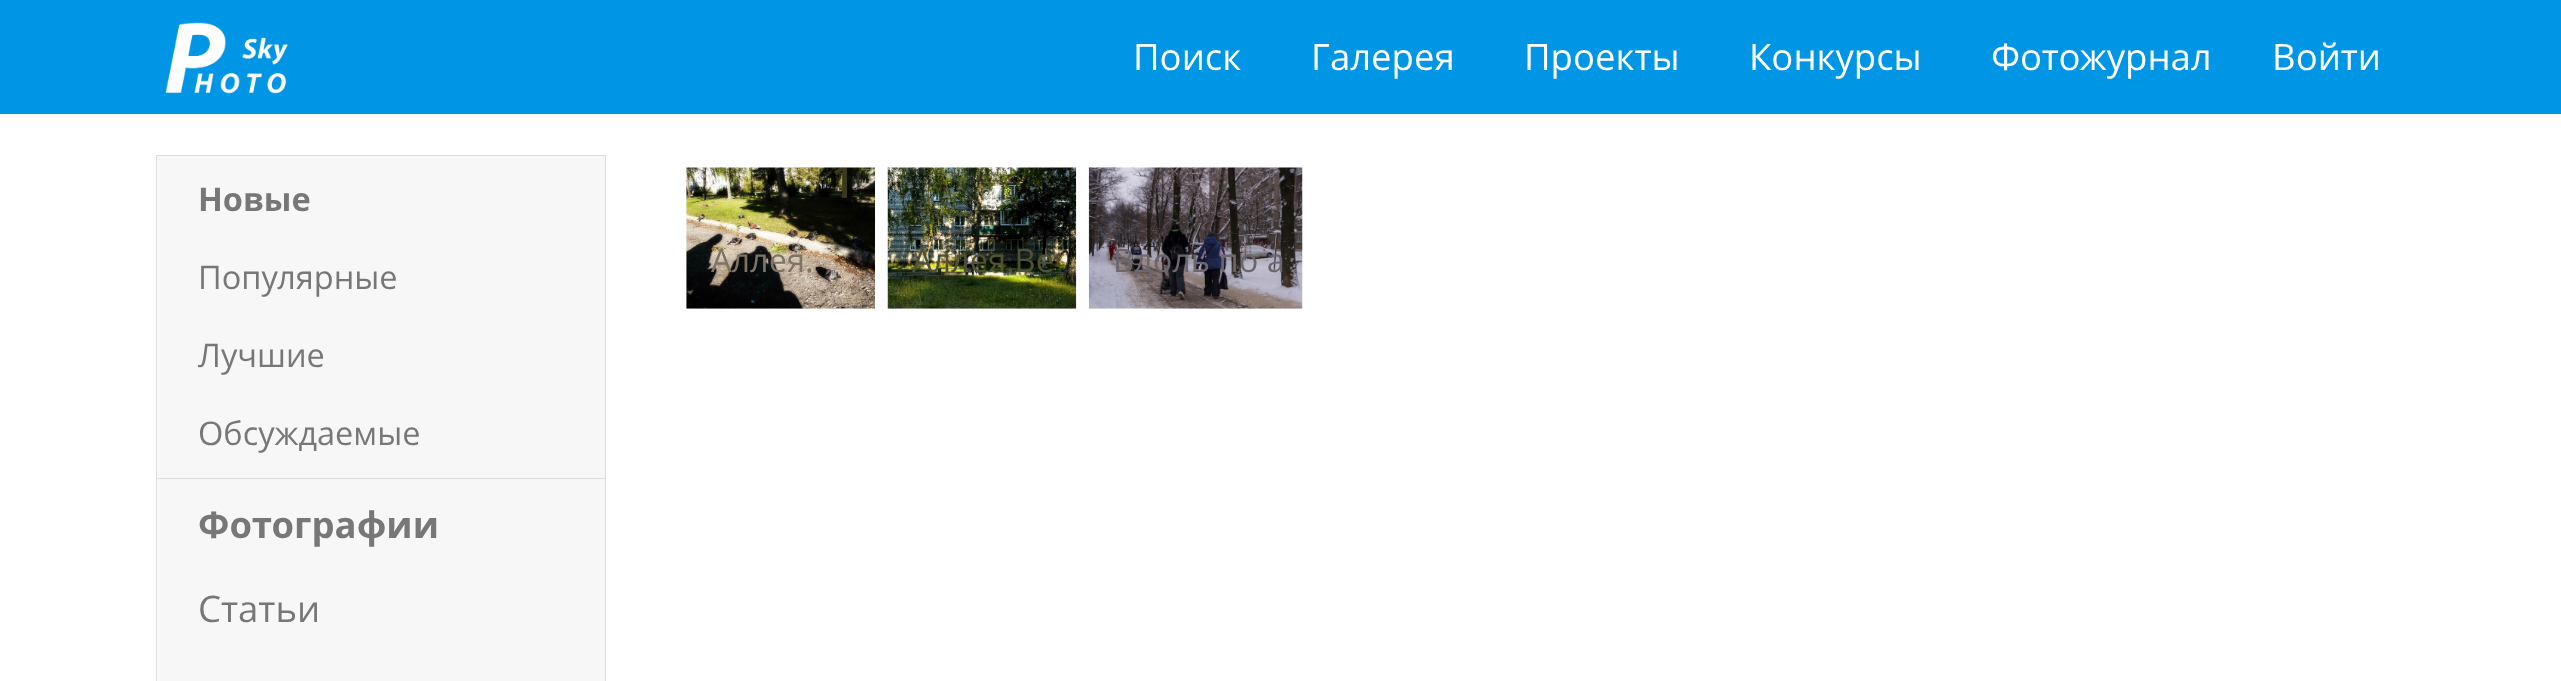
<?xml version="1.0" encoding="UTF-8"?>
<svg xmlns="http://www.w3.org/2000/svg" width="2561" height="681">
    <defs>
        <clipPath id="clip1"><rect x="686" y="168" width="189" height="53"/></clipPath>
        <clipPath id="clip2"><rect x="906" y="236" width="152" height="49"/></clipPath>
    </defs>
    <rect width="100%" height="100%" fill="#FFFFFF"/>
    <rect x="0" y="0" width="2561" height="114" fill="#0096E5"/>
    <image x="165" y="22" width="123" height="72" href="img_01.png"/>
    <text x="1133" y="70" font-family="Open Sans" font-size="36.5" fill="#FFFFFF">Поиск</text>
    <text x="1311" y="70" font-family="Open Sans" font-size="36.5" fill="#FFFFFF">Галерея</text>
    <text x="1524" y="70" font-family="Open Sans" font-size="36.5" fill="#FFFFFF">Проекты</text>
    <text x="1749" y="70" font-family="Open Sans" font-size="36.5" fill="#FFFFFF">Конкурсы</text>
    <text x="1991" y="70" font-family="Open Sans" font-size="36.5" fill="#FFFFFF">Фотожурнал</text>
    <text x="2272" y="70" font-family="Open Sans" font-size="36.5" fill="#FFFFFF">Войти</text>
    <rect x="156.5" y="155.5" width="449" height="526" fill="#F7F7F7" stroke="#DDDDDD"/>
    <rect x="158" y="478" width="447" height="1" fill="#DDDDDD"/>
    <text x="198" y="211" font-family="Open Sans" font-size="32.5" font-weight="700" fill="#777777">Новые</text>
    <text x="198" y="289" font-family="Open Sans" font-size="32.5" fill="#777777">Популярные</text>
    <text x="198" y="367" font-family="Open Sans" font-size="32.5" fill="#777777">Лучшие</text>
    <text x="198" y="445" font-family="Open Sans" font-size="32.5" fill="#777777">Обсуждаемые</text>
    <text x="198" y="538" font-family="Open Sans" font-size="36.5" font-weight="700" fill="#777777">Фотографии</text>
    <text x="198" y="622" font-family="Open Sans" font-size="36.5" fill="#777777">Статьи</text>
    <image x="686" y="167" width="189" height="142" href="img_02.png"/>
    <g clip-path="url(#clip1)">
        <text x="830" y="198" font-family="'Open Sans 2'" font-size="45" font-weight="700" fill="#3A381B">1</text>
    </g>
    <text x="711" y="272" font-family="Open Sans" font-size="32.5" fill="#7D7468">Аллея.</text>
    <image x="887" y="167" width="190" height="142" href="img_03.png"/>
    <g clip-path="url(#clip2)">
        <text x="912" y="272" font-family="Open Sans" font-size="32.5" fill="#4F5134">Аллея.Веч</text>
    </g>
    <image x="1088" y="167" width="215" height="142" href="img_04.png"/>
    <text x="1113" y="272" font-family="Open Sans" font-size="32.5" fill="#6C666F">Вдоль по а</text>
</svg>
